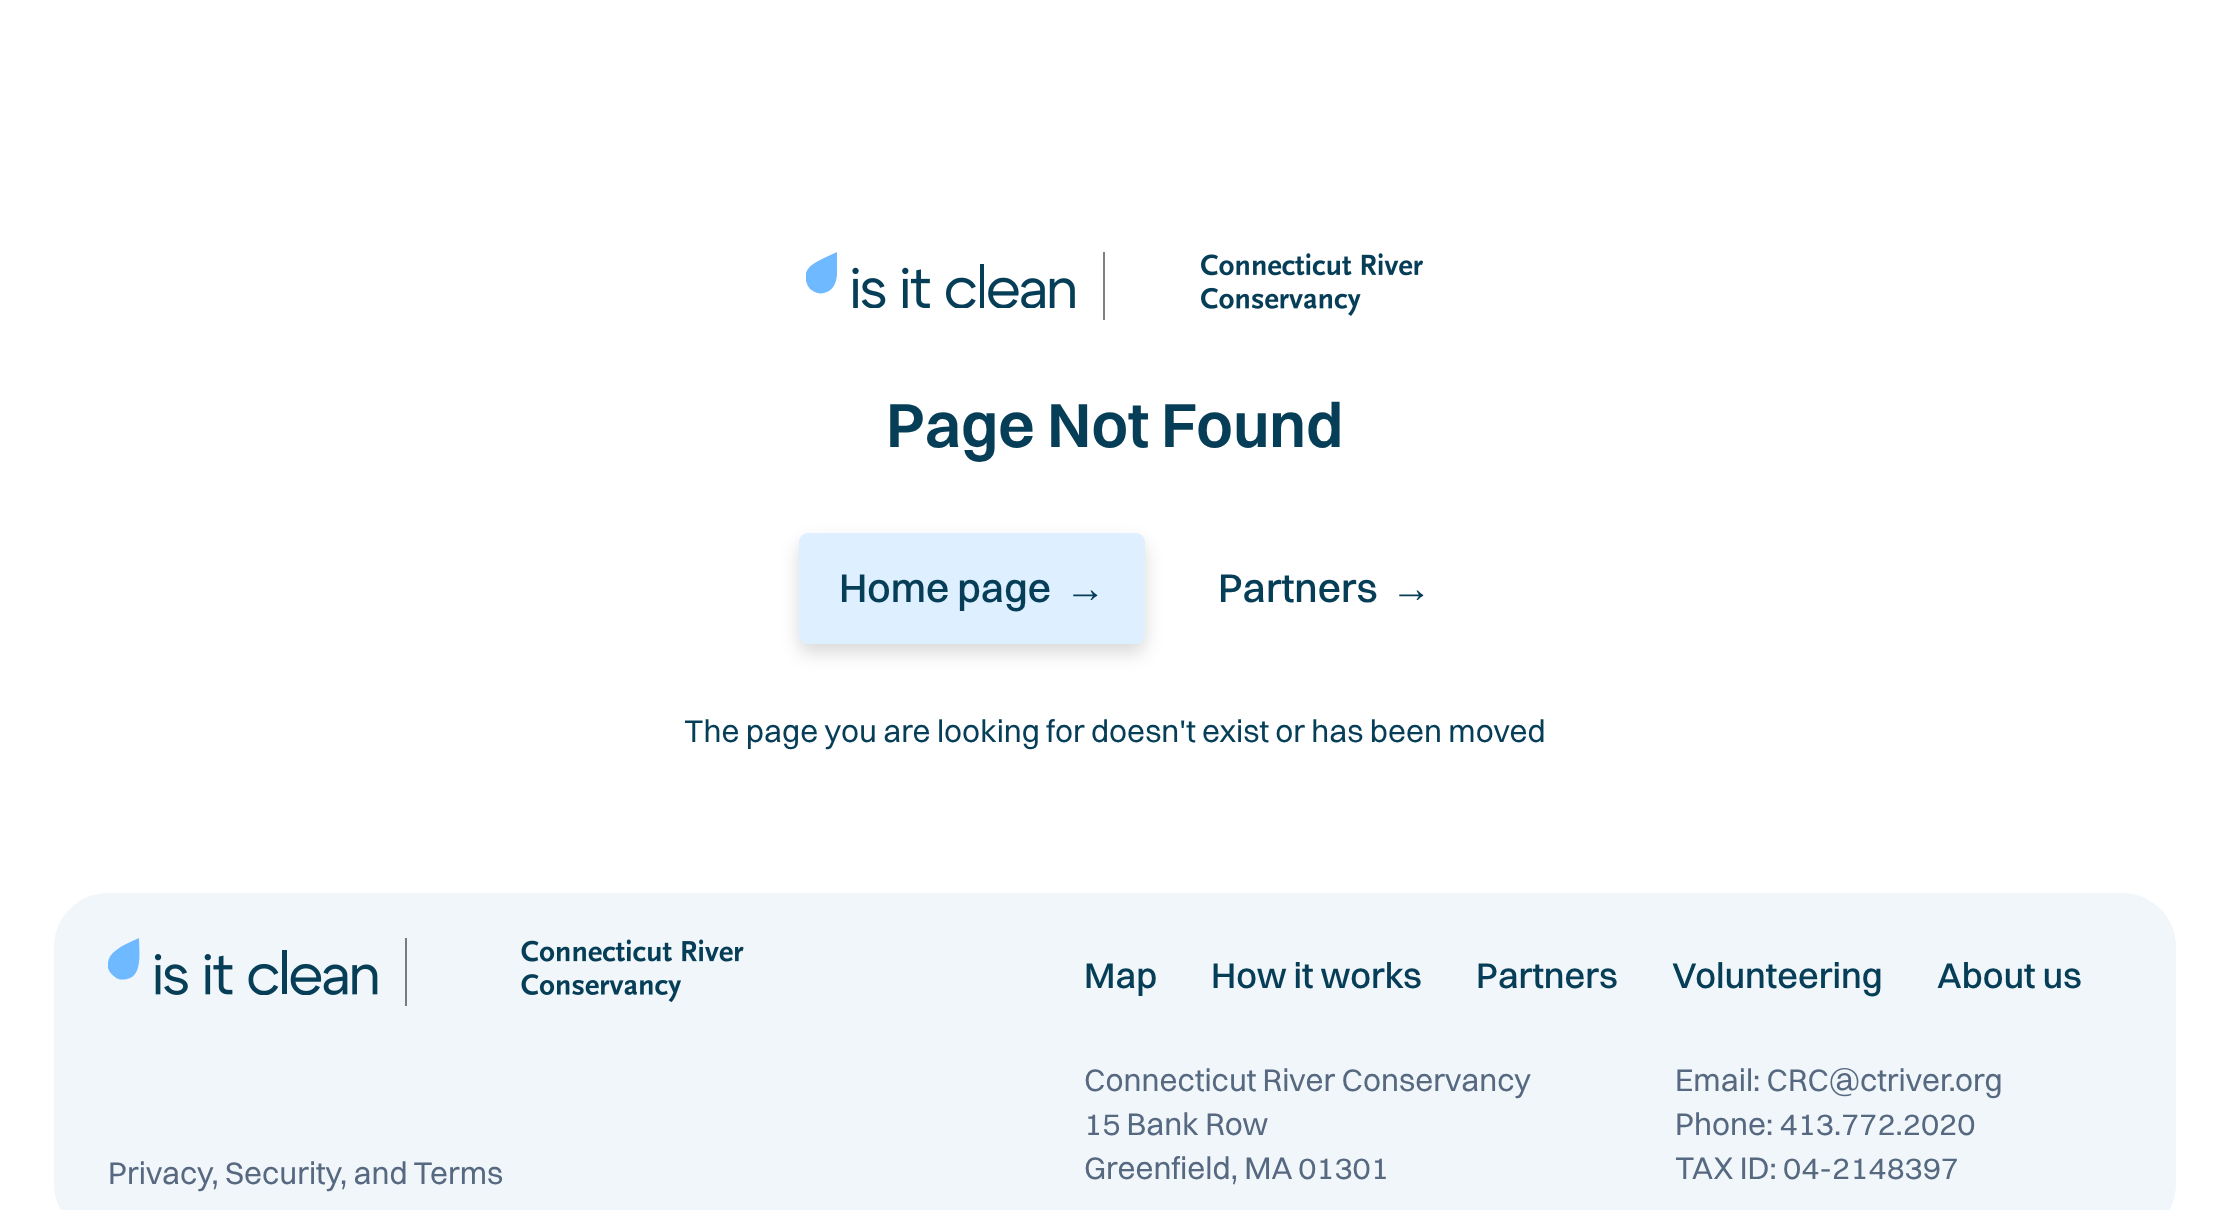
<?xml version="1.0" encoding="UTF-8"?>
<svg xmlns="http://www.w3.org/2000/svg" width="2229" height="1210">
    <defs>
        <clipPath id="clip1"><rect x="806" y="252" width="31" height="65"/></clipPath>
        <filter id="blur1" x="-50%" y="-200%" width="200%" height="500%"><feGaussianBlur stdDeviation="9"/></filter>
        <clipPath id="clip2"><rect x="108" y="938" width="32" height="68"/></clipPath>
    </defs>
    <rect width="100%" height="100%" fill="#FFFFFF"/>
    <g clip-path="url(#clip1)">
        <path d="M 813 291 C 809 289 807 285 806 281 C 803 268 814 263 824 258 L 837 252 C 837 265 841 289 824 293 C 820 294 816 293 813 291 Z" fill="#6EB9FF" fill-rule="evenodd"/>
    </g>
    <image x="852" y="264" width="223" height="44" href="img_01.png"/>
    <rect x="1103" y="252" width="2" height="68" fill="#808080"/>
    <image x="1201" y="253" width="223" height="63" href="img_02.png"/>
    <text x="886" y="447" font-family="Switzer" font-size="63" font-weight="600" fill="#063D57">Page Not Found</text>
    <rect x="799" y="542" width="346" height="111" rx="9" fill="#000000" fill-opacity="0.15" filter="url(#blur1)"/>
    <rect x="799" y="533" width="346" height="111" rx="9" fill="#DEEFFF"/>
    <text x="839" y="602" font-family="Switzer" font-size="40.5" font-weight="500" fill="#063D57">Home page</text>
    <text x="1065" y="602" font-family="Liberation Sans" font-size="40.5" fill="#063D57">→</text>
    <text x="1218" y="602" font-family="Switzer" font-size="40.5" font-weight="500" fill="#063D57">Partners</text>
    <text x="1391" y="602" font-family="Liberation Sans" font-size="40.5" fill="#063D57">→</text>
    <text x="684" y="742" font-family="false" font-size="31.5" fill="#063D57">The page you are looking for doesn't exist or has been moved</text>
    <rect x="54" y="893" width="2122" height="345" rx="54" fill="#F0F6F9"/>
    <g clip-path="url(#clip2)">
        <path d="M 115 977 C 112 975 109 972 108 968 C 106 955 117 949 126 944 L 139 938 C 139 951 143 976 127 979 C 123 980 118 980 115 977 Z" fill="#6EB9FF" fill-rule="evenodd"/>
    </g>
    <image x="154" y="950" width="224" height="45" href="img_03.png"/>
    <rect x="405" y="938" width="2" height="68" fill="#787B7D"/>
    <image x="521" y="939" width="223" height="64" href="img_04.png"/>
    <text x="108" y="1184" font-family="false" font-size="31.5" fill="#566981">Privacy, Security, and Terms</text>
    <text x="1084" y="988" font-family="Switzer" font-size="36" font-weight="500" fill="#063D57">Map</text>
    <text x="1211" y="988" font-family="Switzer" font-size="36" font-weight="500" fill="#063D57">How it works</text>
    <text x="1476" y="988" font-family="Switzer" font-size="36" font-weight="500" fill="#063D57">Partners</text>
    <text x="1672" y="988" font-family="Switzer" font-size="36" font-weight="500" fill="#063D57">Volunteering</text>
    <text x="1937" y="988" font-family="Switzer" font-size="36" font-weight="500" fill="#063D57">About us</text>
    <text font-family="false" font-size="31.5" fill="#566981">
        <tspan x="1084" y="1091">Connecticut River Conservancy</tspan>
        <tspan x="1084" y="1135">15 Bank Row</tspan>
        <tspan x="1084" y="1179">Greenfield, MA 01301</tspan>
    </text>
    <text font-family="false" font-size="31.5" fill="#566981">
        <tspan x="1675" y="1091">Email: CRC@ctriver.org</tspan>
        <tspan x="1675" y="1135">Phone: 413.772.2020</tspan>
        <tspan x="1675" y="1179">TAX ID: 04-2148397</tspan>
    </text>
</svg>
